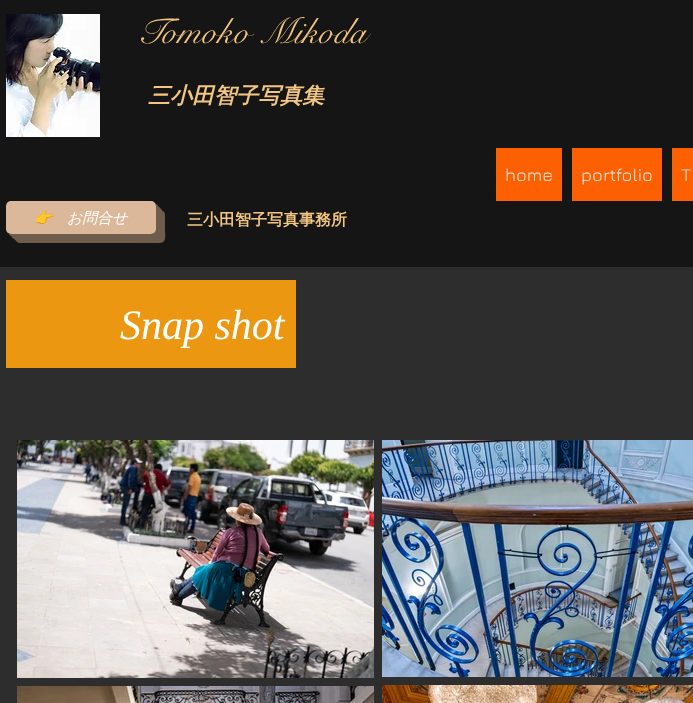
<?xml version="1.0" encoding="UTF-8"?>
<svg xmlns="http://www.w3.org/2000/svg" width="693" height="703">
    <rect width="100%" height="100%" fill="#151515"/>
    <image x="6" y="14" width="94" height="123" href="img_01.png"/>
    <text x="137" y="43" font-family="'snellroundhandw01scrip'" font-size="36" fill="#F2C682">Tomoko Mikoda</text>
    <text x="148" y="103" font-family="WenQuanYi Zen Hei" font-size="22" font-weight="700" font-style="italic" fill="#F2C682">三小田智子写真集</text>
    <rect x="496" y="148" width="66" height="53" fill="#FC6000"/>
    <text x="505" y="181" font-family="Jura" font-size="18" fill="#E8E8E8">home</text>
    <rect x="572" y="148" width="90" height="53" fill="#FC6000"/>
    <text x="581" y="181" font-family="Jura" font-size="18" fill="#E8E8E8">portfolio</text>
    <rect x="672" y="148" width="21" height="53" fill="#FC6000"/>
    <text x="681" y="181" font-family="Jura" font-size="18" fill="#E8E8E8">T</text>
    <path d="M 15 234 C 15 237 15 242 19 243 H 160 C 167 243 165 234 165 230 V 215 C 165 210 160 210 156 210 V 229 C 156 232 154 234 151 234 Z" fill="#6E5C4D"/>
    <path d="M 13 234 C 13 237 14 241 18 241 H 135 C 168 241 163 246 163 217 C 163 211 163 208 156 208 V 229 C 156 232 154 234 151 234 Z" fill="#6E5C4D"/>
    <path d="M 11 234 C 11 237 13 239 16 239 H 156 C 159 239 161 237 161 234 V 211 C 161 208 159 206 156 206 V 229 C 156 232 154 234 151 234 Z" fill="#6E5C4D"/>
    <path d="M 9 234 C 10 236 12 237 14 237 H 154 C 157 237 159 235 159 232 V 209 C 159 207 158 205 156 204 V 221 C 156 225 158 234 151 234 Z" fill="#6E5C4D"/>
    <path d="M 8 233 C 9 234 10 235 12 235 H 152 C 155 235 157 233 157 230 V 207 C 157 205 156 204 155 203 C 156 204 156 205 156 206 V 229 C 156 232 154 234 151 234 H 11 C 10 234 9 234 8 233 Z" fill="#6E5C4D"/>
    <rect x="6" y="201" width="150" height="33" rx="5" fill="#DBB89A"/>
    <text x="34" y="223" font-family="Noto Color Emoji" font-size="15" font-style="italic" fill="#FFFFFF">👉</text>
    <text x="67" y="223" font-family="WenQuanYi Zen Hei" font-size="15" font-weight="500" font-style="italic" fill="#FFFFFF">お問合せ</text>
    <text x="187" y="225" font-family="WenQuanYi Zen Hei" font-size="16" font-weight="700" fill="#F2C682">三小田智子写真事務所</text>
    <rect x="0" y="267" width="693" height="436" fill="#2D2D2D"/>
    <rect x="6" y="280" width="290" height="88" fill="#EC9712"/>
    <text x="120" y="339" font-family="Liberation Serif" font-size="42" font-style="italic" fill="#FFFFFF">Snap shot</text>
    <image x="17" y="440" width="357" height="238" href="img_02.png"/>
    <image x="382" y="440" width="311" height="237" href="img_03.png"/>
    <image x="17" y="686" width="357" height="17" href="img_04.png"/>
    <image x="382" y="685" width="311" height="18" href="img_05.png"/>
</svg>
